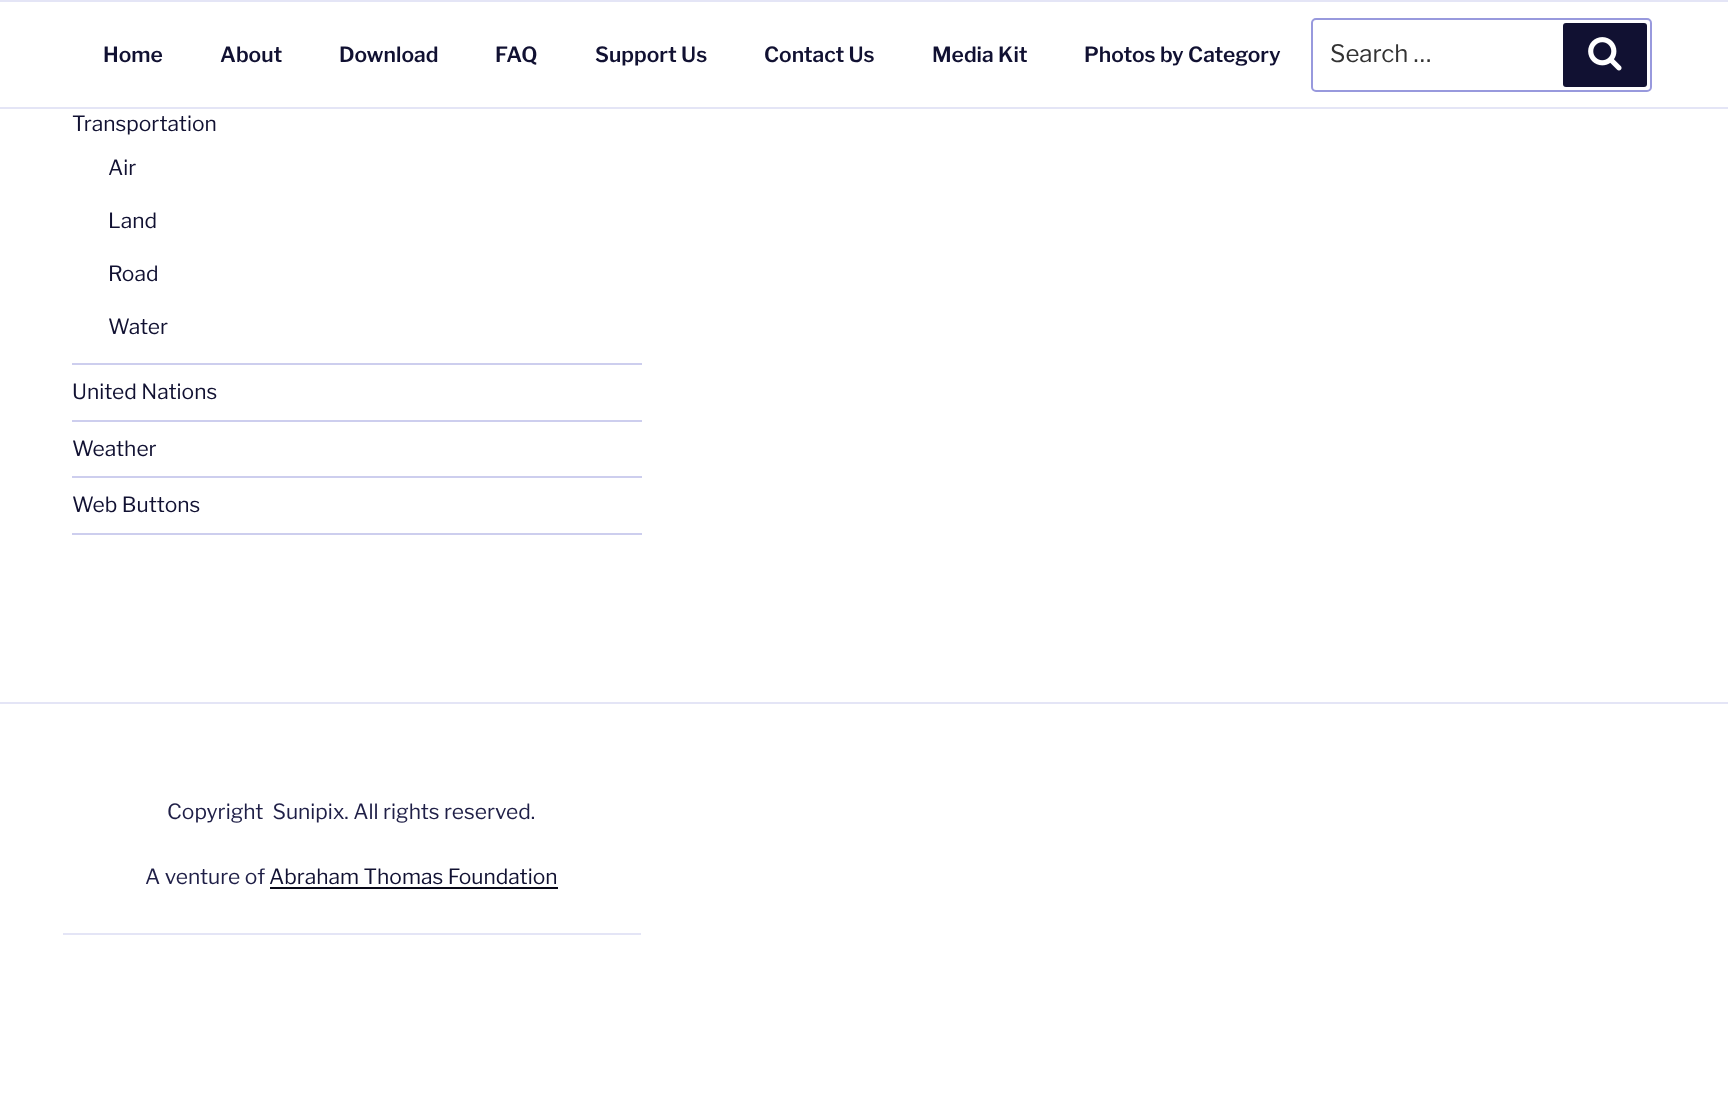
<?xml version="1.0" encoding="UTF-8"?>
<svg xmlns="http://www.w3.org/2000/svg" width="1728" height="1107">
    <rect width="100%" height="100%" fill="#FFFFFF"/>
    <rect x="0" y="0" width="1728" height="2" fill="#E4E5F6"/>
    <rect x="0" y="107" width="1728" height="2" fill="#E4E5F6"/>
    <text x="103" y="62" font-family="Libre Franklin" font-size="21" font-weight="600" fill="#111132">Home</text>
    <text x="220" y="62" font-family="Libre Franklin" font-size="21" font-weight="600" fill="#111132">About</text>
    <text x="339" y="62" font-family="Libre Franklin" font-size="21" font-weight="600" fill="#111132">Download</text>
    <text x="495" y="62" font-family="Libre Franklin" font-size="21" font-weight="600" fill="#111132">FAQ</text>
    <text x="595" y="62" font-family="Libre Franklin" font-size="21" font-weight="600" fill="#111132">Support Us</text>
    <text x="764" y="62" font-family="Libre Franklin" font-size="21" font-weight="600" fill="#111132">Contact Us</text>
    <text x="932" y="62" font-family="Libre Franklin" font-size="21" font-weight="600" fill="#111132">Media Kit</text>
    <text x="1084" y="62" font-family="Libre Franklin" font-size="21" font-weight="600" fill="#111132">Photos by Category</text>
    <rect x="1312" y="19" width="339" height="72" rx="4" fill="none" stroke="#9899DD" stroke-width="2"/>
    <text x="1330" y="62" font-family="Libre Franklin" font-size="24" fill="#333333">Search …</text>
    <rect x="1563" y="23" width="84" height="64" rx="3" fill="#111132"/>
    <image x="1588" y="37" width="34" height="34" href="img_01.png"/>
    <rect x="72" y="363" width="570" height="2" fill="#CDCEEE"/>
    <text x="72" y="131" font-family="Libre Franklin" font-size="21" fill="#111132">Transportation</text>
    <text x="108" y="175" font-family="Libre Franklin" font-size="21" fill="#111132">Air</text>
    <text x="108" y="228" font-family="Libre Franklin" font-size="21" fill="#111132">Land</text>
    <text x="108" y="281" font-family="Libre Franklin" font-size="21" fill="#111132">Road</text>
    <text x="108" y="334" font-family="Libre Franklin" font-size="21" fill="#111132">Water</text>
    <rect x="72" y="420" width="570" height="2" fill="#CDCEEE"/>
    <text x="72" y="399" font-family="Libre Franklin" font-size="21" fill="#111132">United Nations</text>
    <rect x="72" y="476" width="570" height="2" fill="#CDCEEE"/>
    <text x="72" y="456" font-family="Libre Franklin" font-size="21" fill="#111132">Weather</text>
    <rect x="72" y="533" width="570" height="2" fill="#CDCEEE"/>
    <text x="72" y="512" font-family="Libre Franklin" font-size="21" fill="#111132">Web Buttons</text>
    <rect x="0" y="702" width="1728" height="2" fill="#E4E5F6"/>
    <rect x="63" y="933" width="578" height="2" fill="#E4E5F6"/>
    <text x="167" y="819" font-family="Libre Franklin" font-size="21" fill="#1F1F47" xml:space="preserve">Copyright  Sunipix. All rights reserved.</text>
    <text x="145" y="884" font-family="Libre Franklin" font-size="21" fill="#1F1F47">A venture of</text>
    <text x="269" y="884" font-family="Libre Franklin" font-size="21" fill="#111132">Abraham Thomas Foundation</text>
    <rect x="270" y="887" width="288" height="2" fill="#080817"/>
</svg>
